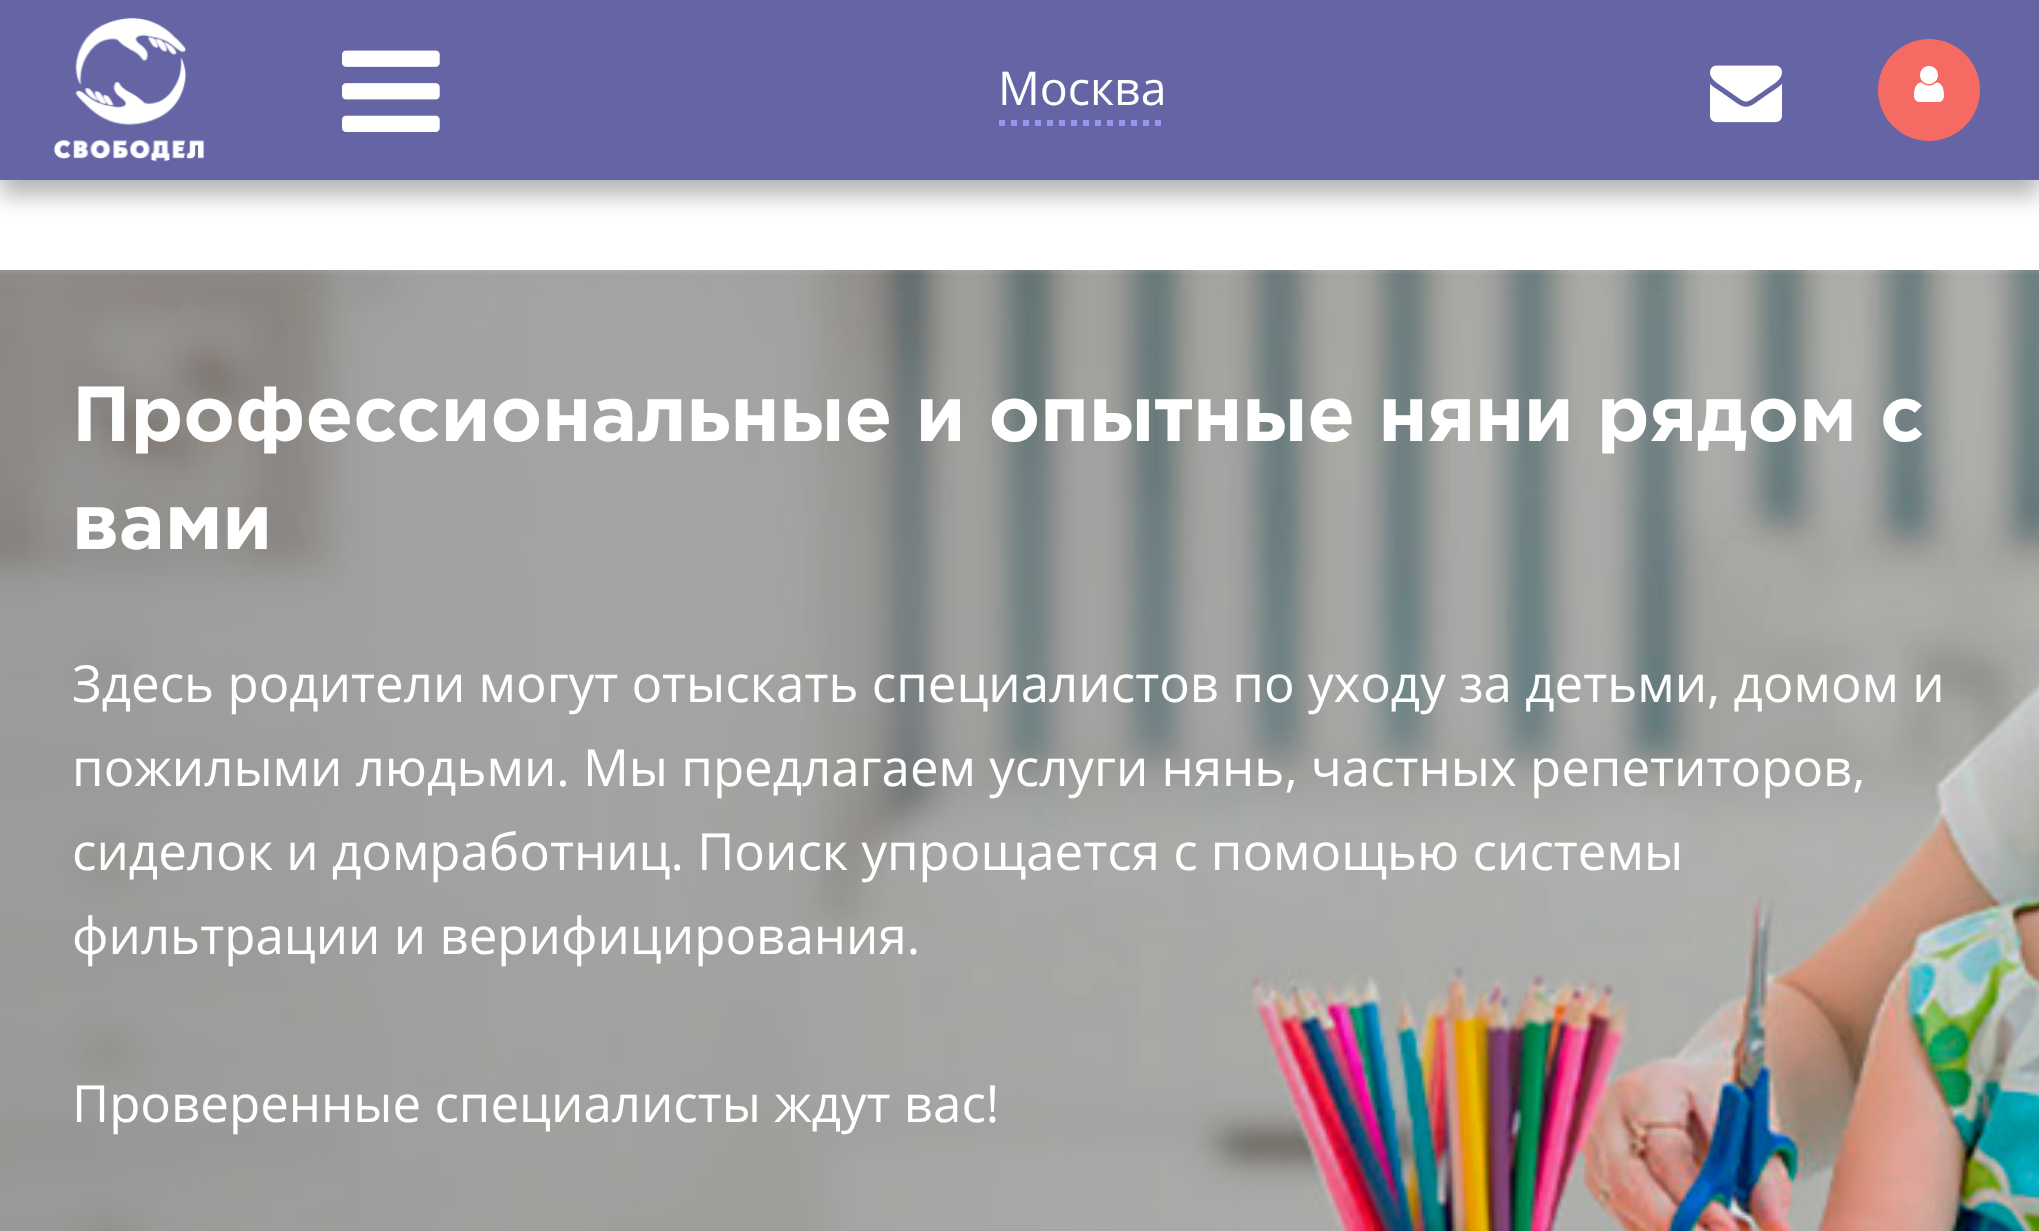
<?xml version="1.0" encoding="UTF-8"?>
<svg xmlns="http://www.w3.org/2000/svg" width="2039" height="1231">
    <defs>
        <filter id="blur1" x="-50%" y="-200%" width="200%" height="500%"><feGaussianBlur stdDeviation="12"/></filter>
    </defs>
    <rect width="100%" height="100%" fill="#FFFFFF"/>
    <rect x="0" y="15" width="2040" height="180" fill="#000000" fill-opacity="0.3" filter="url(#blur1)"/>
    <rect x="0" y="0" width="2039" height="180" fill="#6565A6"/>
    <image x="54" y="18" width="151" height="144" href="img_01.png"/>
    <image x="342" y="50" width="98" height="82" href="img_02.png"/>
    <text x="998" y="105" font-family="Open Sans" font-size="46.5" fill="#FFFFFF">Москва</text>
    <path d="M 999 123 H 1167" fill="none" stroke="#9595F1" stroke-width="6" stroke-dasharray="6 6"/>
    <image x="1710" y="65" width="72" height="58" href="img_03.png"/>
    <circle cx="1929" cy="90" r="51" fill="#F56B64"/>
    <image x="1914" y="66" width="30" height="36" href="img_04.png"/>
    <image x="0" y="270" width="2039" height="961" href="img_05.png"/>
    <text font-family="Gotham" font-size="78" font-weight="700" fill="#FFFFFF">
        <tspan x="72" y="441">Профессиональные и опытные няни рядом с</tspan>
        <tspan x="72" y="549">вами</tspan>
    </text>
    <text font-family="Open Sans" font-size="51" fill="#FFFFFF">
        <tspan x="72" y="702">Здесь родители могут отыскать специалистов по уходу за детьми, домом и</tspan>
        <tspan x="72" y="786">пожилыми людьми. Мы предлагаем услуги нянь, частных репетиторов,</tspan>
        <tspan x="72" y="870">сиделок и домработниц. Поиск упрощается с помощью системы</tspan>
        <tspan x="72" y="954">фильтрации и верифицирования.</tspan>
    </text>
    <text x="72" y="1122" font-family="Open Sans" font-size="51" fill="#FFFFFF">Проверенные специалисты ждут вас!</text>
</svg>
